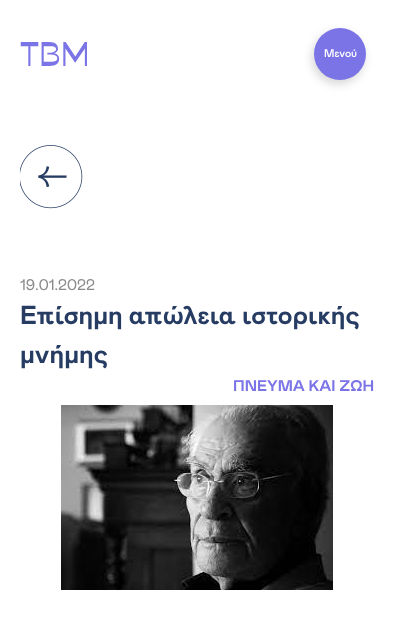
<?xml version="1.0" encoding="UTF-8"?>
<svg xmlns="http://www.w3.org/2000/svg" width="394" height="628">
    <defs>
        <filter id="blur1" x="-50%" y="-200%" width="200%" height="500%"><feGaussianBlur stdDeviation="5"/></filter>
    </defs>
    <rect width="100%" height="100%" fill="#FFFFFF"/>
    <text x="20" y="66" font-family="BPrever" font-size="33.5" font-weight="700" fill="#7B74E6">ΤΒΜ</text>
    <rect x="312" y="32" width="52" height="52" rx="26" fill="#000000" fill-opacity="0.16" filter="url(#blur1)"/>
    <circle cx="340" cy="54" r="26" fill="#7B74E6"/>
    <text x="324" y="57" font-family="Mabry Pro" font-size="11" font-weight="500" fill="#FFFFFF">Μενού</text>
    <image x="20" y="145" width="63" height="64" href="img_01.png"/>
    <text x="20" y="290" font-family="Mabry Pro" font-size="15.5" fill="#8B8B8B">19.01.2022</text>
    <text font-family="Mabry Pro" font-size="26" font-weight="700" fill="#273C63">
        <tspan x="20" y="324">Επίσημη απώλεια ιστορικής</tspan>
        <tspan x="20" y="363">μνήμης</tspan>
    </text>
    <text x="233" y="391" font-family="Mabry Pro" font-size="15.5" font-weight="700" fill="#7B74E6">ΠΝΕΥΜΑ ΚΑΙ ΖΩΗ</text>
    <image x="61" y="405" width="272" height="185" href="img_02.png"/>
</svg>
